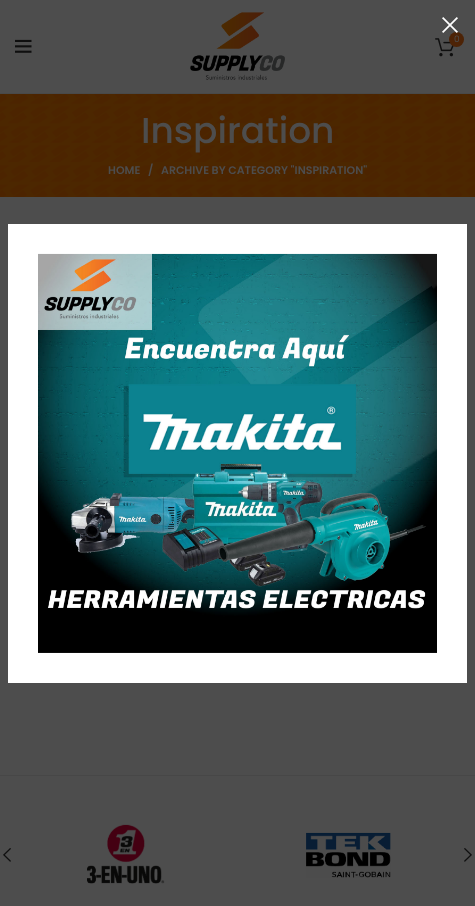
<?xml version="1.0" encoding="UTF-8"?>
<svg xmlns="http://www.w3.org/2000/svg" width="475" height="906">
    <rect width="100%" height="100%" fill="#4D4D4D"/>
    <rect x="8" y="224" width="459" height="459" fill="#FFFFFF"/>
    <image x="435" y="38" width="19" height="19" href="img_05.png"/>
    <circle cx="456.5" cy="39.5" r="7.5" fill="#4D2306"/>
    <image x="442" y="17" width="16" height="16" href="img_01.png"/>
    <image x="38" y="253" width="399" height="400" href="img_02.png"/>
    <rect x="0" y="93" width="475" height="1" fill="#494949"/>
    <image x="15" y="39" width="17" height="14" href="img_03.png"/>
    <image x="190" y="12" width="95" height="68" href="img_04.png"/>
    <text x="454" y="42" font-family="Poppins" font-size="9" fill="#4D4D4D">0</text>
    <image x="0" y="94" width="475" height="103" href="img_06.png"/>
    <text x="141" y="143" font-family="Poppins" font-size="36" font-weight="500" fill="#4D4D4D">Inspiration</text>
    <text x="108" y="174" font-family="Poppins" font-size="11" font-weight="600" fill="#4D4D4D">HOME</text>
    <text x="148" y="174" font-family="Poppins" font-size="11" font-weight="600" fill="#4D4D4D">/</text>
    <text x="161" y="174" font-family="Poppins" font-size="11" font-weight="600" fill="#4D4D4D">ARCHIVE BY CATEGORY "INSPIRATION"</text>
    <rect x="0" y="775" width="475" height="1" fill="#474747"/>
    <image x="87" y="824" width="78" height="60" href="img_07.png"/>
    <image x="306" y="832" width="85" height="46" href="img_08.png"/>
    <image x="3" y="848" width="8" height="14" href="img_09.png"/>
    <image x="464" y="848" width="8" height="14" href="img_10.png"/>
</svg>
